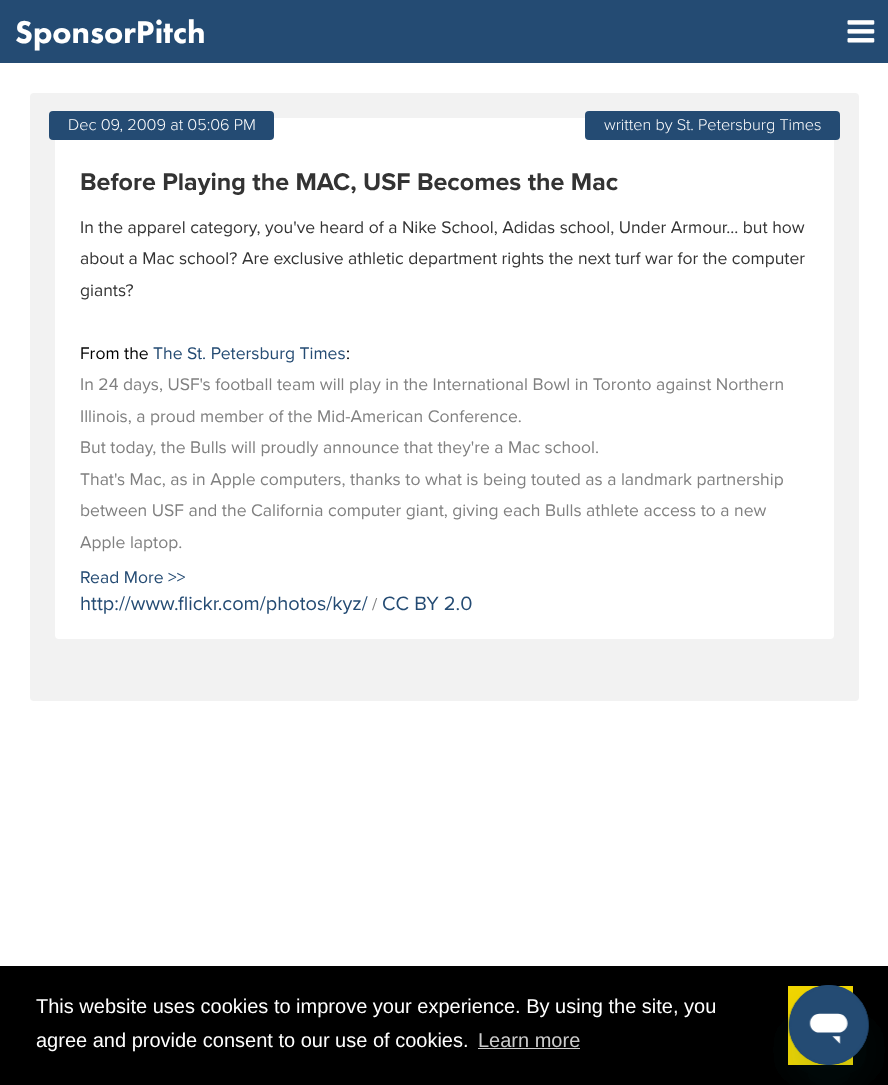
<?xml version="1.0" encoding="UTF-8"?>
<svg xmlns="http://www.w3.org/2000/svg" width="888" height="1085">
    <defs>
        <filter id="blur1" x="-50%" y="-200%" width="200%" height="500%"><feGaussianBlur stdDeviation="19"/></filter>
    </defs>
    <rect width="100%" height="100%" fill="#FFFFFF"/>
    <rect x="0" y="0" width="888" height="63" fill="#244B73"/>
    <text x="15" y="43" font-family="Futura PT" font-size="32.5" font-weight="900" fill="#FFFFFF">SponsorPitch</text>
    <image x="847" y="20" width="28" height="23" href="img_01.png"/>
    <rect x="30" y="93" width="829" height="608" rx="4" fill="#F2F2F2"/>
    <rect x="55" y="118" width="779" height="521" rx="4" fill="#FFFFFF"/>
    <rect x="49" y="111" width="225" height="29" rx="4" fill="#244B73"/>
    <text x="68" y="130" font-family="Proxima Nova" font-size="16.25" font-weight="300" fill="#FFFFFF">Dec 09, 2009 at 05:06 PM</text>
    <rect x="585" y="111" width="255" height="29" rx="4" fill="#244B73"/>
    <text x="604" y="130" font-family="Proxima Nova" font-size="16.25" font-weight="300" fill="#FFFFFF">written by St. Petersburg Times</text>
    <text x="80" y="190" font-family="Proxima Nova" font-size="25" font-weight="700" fill="#333333">Before Playing the MAC, USF Becomes the Mac</text>
    <text font-family="Proxima Nova" font-size="17.5" fill="#333333">
        <tspan x="80" y="233">In the apparel category, you've heard of a Nike School, Adidas school, Under Armour... but how</tspan>
        <tspan x="80" y="264">about a Mac school? Are exclusive athletic department rights the next turf war for the computer</tspan>
        <tspan x="80" y="296">giants?</tspan>
    </text>
    <text x="80" y="359" font-family="Proxima Nova" font-size="17.5" fill="#000000">From the</text>
    <text x="153" y="359" font-family="Proxima Nova" font-size="17.5" fill="#244B73">The St. Petersburg Times</text>
    <text x="346" y="359" font-family="Proxima Nova" font-size="17.5" fill="#000000">:</text>
    <text font-family="Proxima Nova" font-size="17.5" fill="#808080">
        <tspan x="80" y="390">In 24 days, USF's football team will play in the International Bowl in Toronto against Northern</tspan>
        <tspan x="80" y="422">Illinois, a proud member of the Mid-American Conference.</tspan>
        <tspan x="80" y="453">But today, the Bulls will proudly announce that they're a Mac school.</tspan>
        <tspan x="80" y="485">That's Mac, as in Apple computers, thanks to what is being touted as a landmark partnership</tspan>
        <tspan x="80" y="516">between USF and the California computer giant, giving each Bulls athlete access to a new</tspan>
        <tspan x="80" y="548">Apple laptop.</tspan>
    </text>
    <text x="80" y="583" font-family="Proxima Nova" font-size="17.5" fill="#244B73">Read More &gt;&gt;</text>
    <text x="80" y="610" font-family="Proxima Nova" font-size="20" fill="#244B73">http://www.flickr.com/photos/kyz/</text>
    <text x="372" y="610" font-family="Proxima Nova" font-size="17.5" fill="#808080">/</text>
    <text x="382" y="610" font-family="Proxima Nova" font-size="20" fill="#244B73">CC BY 2.0</text>
    <rect x="0" y="966" width="888" height="119" fill="#000000"/>
    <text font-family="Liberation Sans" font-size="20" fill="#FFFFFF">
        <tspan x="36" y="1013">This website uses cookies to improve your experience. By using the site, you</tspan>
        <tspan x="36" y="1047">agree and provide consent to our use of cookies.</tspan>
    </text>
    <text x="478" y="1047" font-family="Liberation Sans" font-size="20" fill="#CCCCCC">Learn more</text>
    <rect x="478" y="1048" width="102" height="1" fill="#CCCCCC"/>
    <rect x="788" y="986" width="65" height="79" fill="#F1D600"/>
    <rect x="789" y="1010" width="80" height="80" rx="40" fill="#17494D" fill-opacity="0.15" filter="url(#blur1)"/>
    <image x="788" y="985" width="81" height="80" href="img_02.png"/>
</svg>
